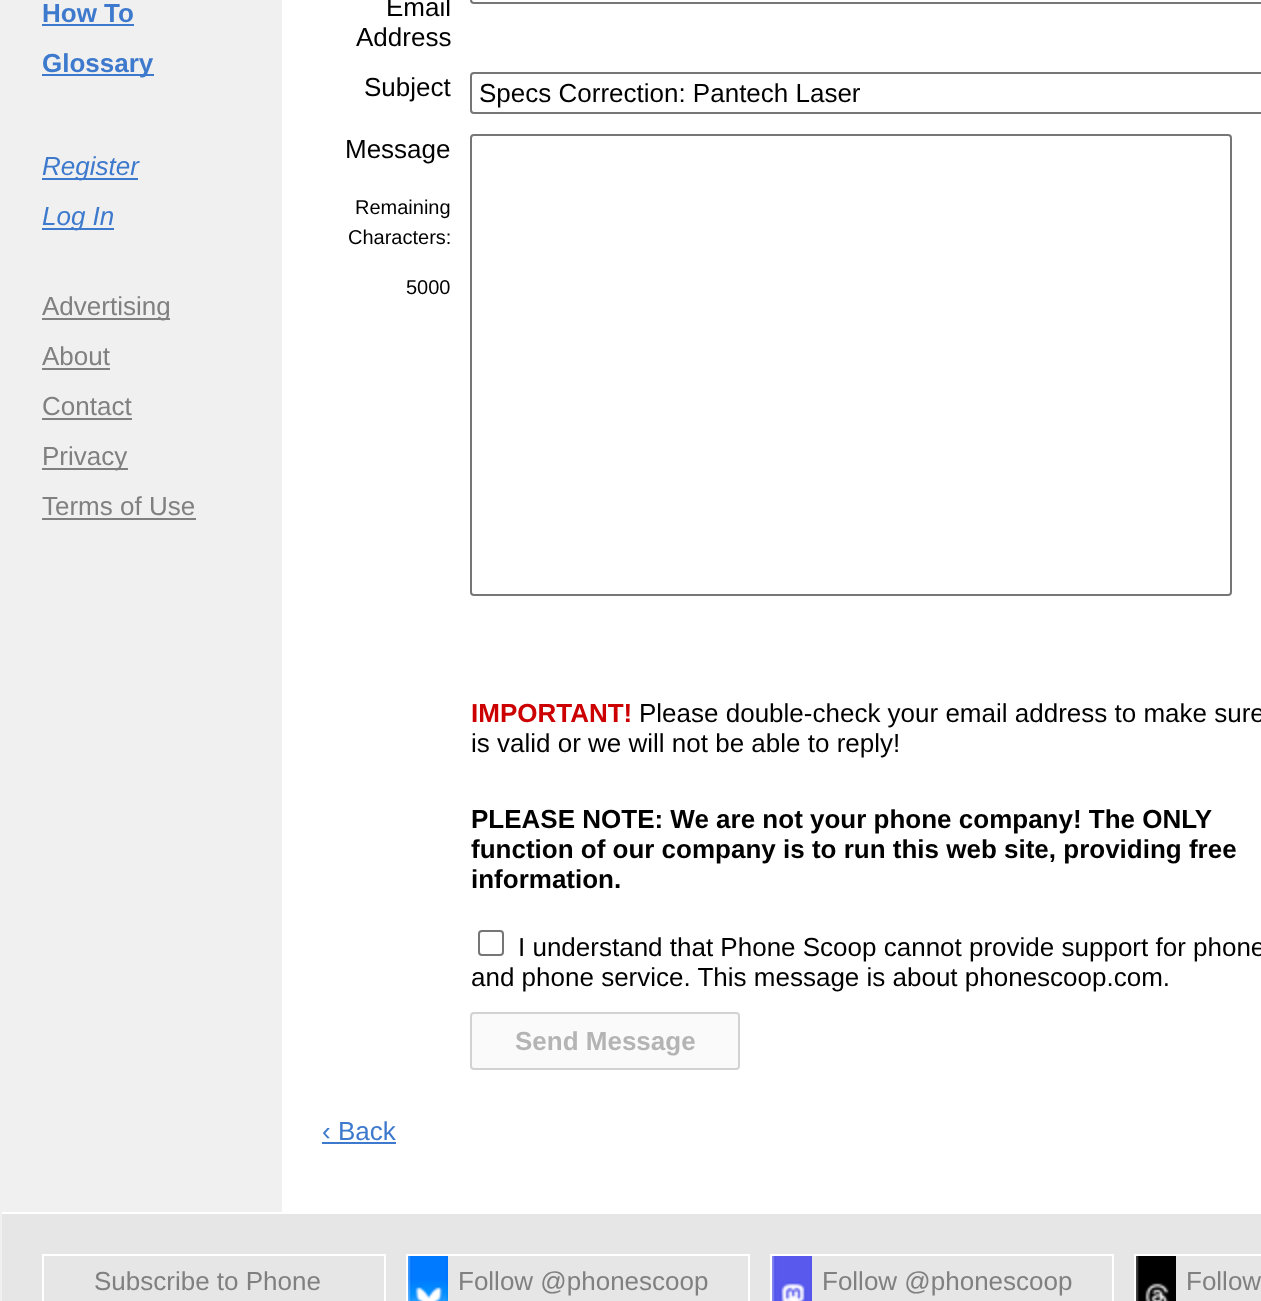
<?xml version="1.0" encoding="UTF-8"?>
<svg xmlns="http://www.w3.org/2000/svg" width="1261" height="1301">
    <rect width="100%" height="100%" fill="#F0F0F0"/>
    <text x="42" y="22" font-family="Arimo" font-size="26" font-weight="700" fill="#3D79CC">How To</text>
    <rect x="42" y="24" width="92" height="2" fill="#3D79CC"/>
    <rect x="42" y="74" width="112" height="2" fill="#3D79CC"/>
    <text x="42" y="72" font-family="Arimo" font-size="26" font-weight="700" fill="#3D79CC">Glossary</text>
    <rect x="42" y="178" width="96" height="2" fill="#3D79CC"/>
    <text x="42" y="175" font-family="Arimo" font-size="26" font-style="italic" fill="#3D79CC">Register</text>
    <rect x="42" y="228" width="72" height="2" fill="#3D79CC"/>
    <text x="42" y="225" font-family="Arimo" font-size="26" font-style="italic" fill="#3D79CC">Log In</text>
    <rect x="42" y="318" width="128" height="2" fill="#808080"/>
    <text font-family="Arimo" font-size="26" fill="#808080">
        <tspan x="42" y="315">Advertising</tspan>
        <tspan x="42" y="365">About</tspan>
    </text>
    <rect x="42" y="368" width="68" height="2" fill="#808080"/>
    <text x="42" y="415" font-family="Arimo" font-size="26" fill="#808080">Contact</text>
    <rect x="42" y="418" width="90" height="2" fill="#808080"/>
    <rect x="42" y="468" width="86" height="2" fill="#808080"/>
    <text font-family="Arimo" font-size="26" fill="#808080">
        <tspan x="42" y="465">Privacy</tspan>
        <tspan x="42" y="515">Terms of Use</tspan>
    </text>
    <rect x="42" y="518" width="154" height="2" fill="#808080"/>
    <rect x="282" y="0" width="979" height="1212" fill="#FFFFFF"/>
    <rect x="471" y="-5" width="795" height="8" rx="3" fill="none" stroke="#767676" stroke-width="2"/>
    <text x="386" y="16" font-family="Arimo" font-size="26" fill="#000000">Email</text>
    <text x="356" y="46" font-family="Arimo" font-size="26" fill="#000000">Address</text>
    <text x="364" y="96" font-family="Arimo" font-size="26" fill="#000000">Subject</text>
    <rect x="471" y="73" width="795" height="40" rx="3" fill="none" stroke="#767676" stroke-width="2"/>
    <text x="479" y="102" font-family="Arimo" font-size="26" fill="#000000">Specs Correction: Pantech Laser</text>
    <text x="345" y="158" font-family="Arimo" font-size="26" fill="#000000">Message</text>
    <text x="355" y="214" font-family="Arimo" font-size="20" fill="#000000">Remaining</text>
    <text x="348" y="244" font-family="Arimo" font-size="20" fill="#000000">Characters:</text>
    <text x="406" y="294" font-family="Arimo" font-size="20" fill="#000000">5000</text>
    <rect x="471" y="135" width="760" height="460" rx="3" fill="none" stroke="#767676" stroke-width="2"/>
    <text x="471" y="722" font-family="Arimo" font-size="26" font-weight="700" fill="#CC0000">IMPORTANT!</text>
    <text x="639" y="722" font-family="Arimo" font-size="26" fill="#000000">Please double-check your email address to make sure</text>
    <text x="471" y="752" font-family="Arimo" font-size="26" fill="#000000">is valid or we will not be able to reply!</text>
    <text font-family="Arimo" font-size="26" font-weight="700" fill="#000000">
        <tspan x="471" y="828">PLEASE NOTE: We are not your phone company! The ONLY</tspan>
        <tspan x="471" y="858">function of our company is to run this web site, providing free</tspan>
        <tspan x="471" y="888">information.</tspan>
    </text>
    <rect x="479" y="931" width="24" height="24" rx="3" fill="none" stroke="#767676" stroke-width="2"/>
    <text x="518" y="956" font-family="Arimo" font-size="26" fill="#000000">I understand that Phone Scoop cannot provide support for phone</text>
    <text x="471" y="986" font-family="Arimo" font-size="26" fill="#000000">and phone service. This message is about phonescoop.com.</text>
    <rect x="471" y="1013" width="268" height="56" rx="3" fill="#FAFAFA" stroke="#D2D2D2" stroke-width="2"/>
    <text x="515" y="1050" font-family="Arimo" font-size="26" font-weight="700" fill="#B4B4B4">Send Message</text>
    <text x="322" y="1140" font-family="Arimo" font-size="26" fill="#3D79CC">‹ Back</text>
    <rect x="322" y="1142" width="74" height="2" fill="#3D79CC"/>
    <rect x="2" y="1214" width="1259" height="87" fill="#E6E6E6"/>
    <rect x="2" y="1212" width="1259" height="2" fill="#FFFFFF"/>
    <rect x="43" y="1255" width="342" height="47" fill="none" stroke="#FFFFFF" stroke-width="2"/>
    <text x="94" y="1290" font-family="Arimo" font-size="26" fill="#808080">Subscribe to Phone</text>
    <image x="408" y="1256" width="40" height="45" href="img_01.png"/>
    <rect x="407" y="1255" width="342" height="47" fill="none" stroke="#FFFFFF" stroke-width="2"/>
    <text x="458" y="1290" font-family="Arimo" font-size="26" fill="#808080">Follow @phonescoop</text>
    <image x="772" y="1256" width="40" height="45" href="img_02.png"/>
    <rect x="771" y="1255" width="342" height="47" fill="none" stroke="#FFFFFF" stroke-width="2"/>
    <text x="822" y="1290" font-family="Arimo" font-size="26" fill="#808080">Follow @phonescoop</text>
    <image x="1136" y="1256" width="40" height="45" href="img_03.png"/>
    <rect x="1135" y="1255" width="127" height="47" fill="none" stroke="#FFFFFF" stroke-width="2"/>
    <text x="1186" y="1290" font-family="Arimo" font-size="26" fill="#808080">Follow</text>
</svg>
